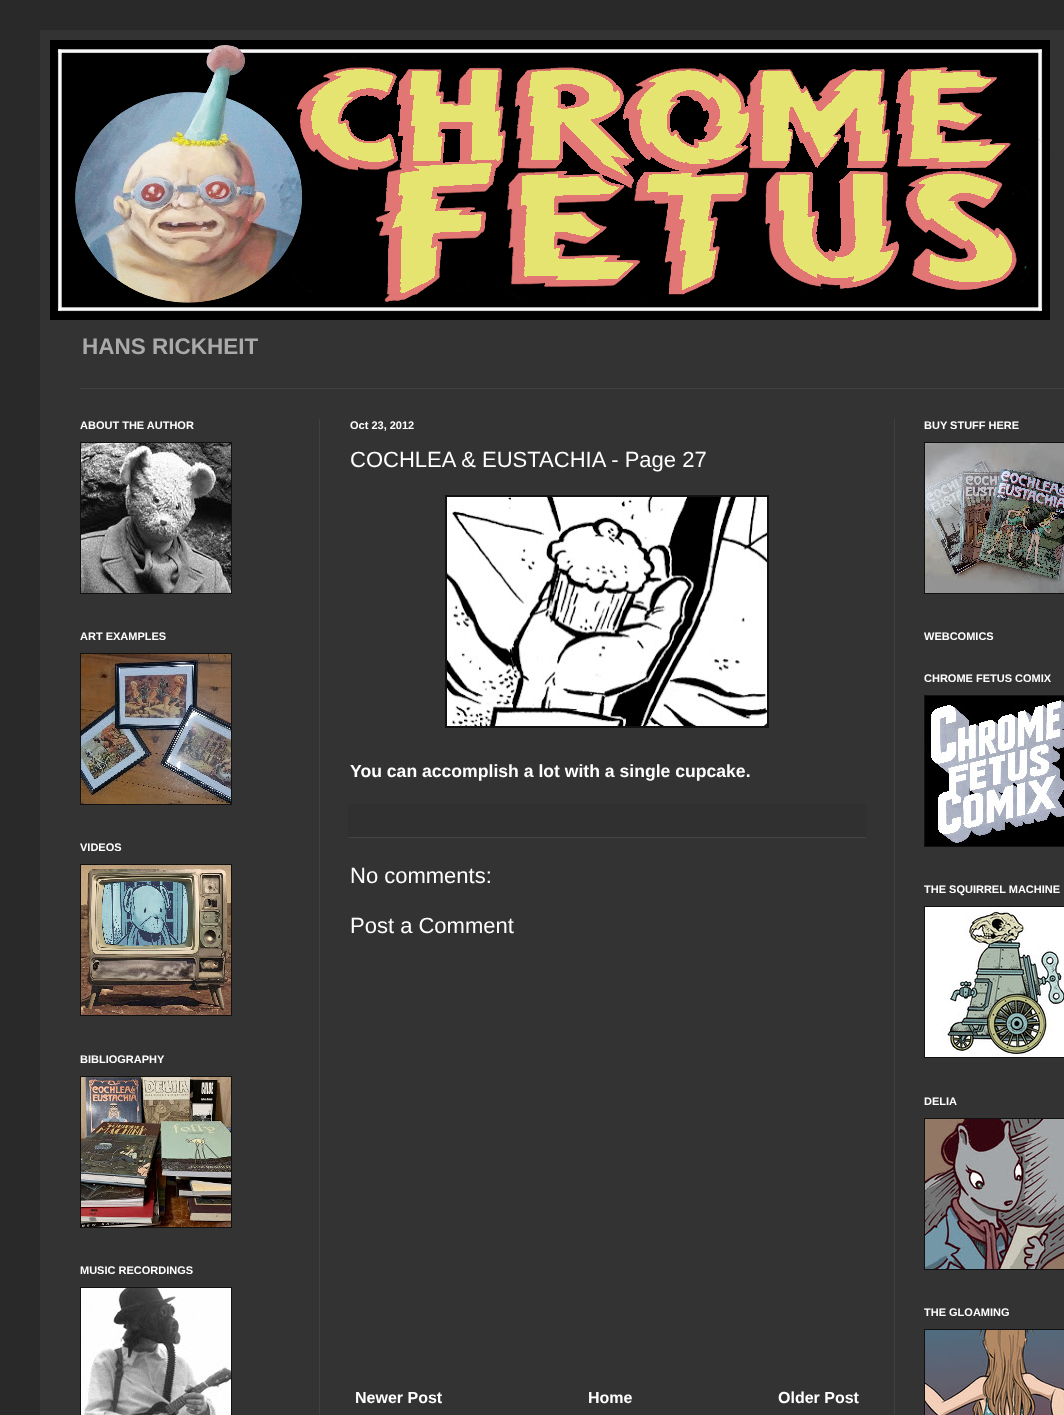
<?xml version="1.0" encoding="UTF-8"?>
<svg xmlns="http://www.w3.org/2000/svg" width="1064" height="1415">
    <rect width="100%" height="100%" fill="#292929"/>
    <rect x="40" y="30" width="1024" height="1385" fill="#333333"/>
    <image x="50" y="40" width="1000" height="280" href="img_01.png"/>
    <text x="82" y="354" font-family="Liberation Sans" font-size="22.5" font-weight="700" fill="#AAAAAA">HANS RICKHEIT</text>
    <rect x="80" y="388" width="984" height="1" fill="#404040"/>
    <rect x="319" y="419" width="1" height="996" fill="#404040"/>
    <rect x="894" y="419" width="1" height="996" fill="#404040"/>
    <text x="80" y="429" font-family="Liberation Sans" font-size="11" font-weight="700" fill="#FFFFFF">ABOUT THE AUTHOR</text>
    <rect x="80" y="442" width="152" height="152" fill="#111111"/>
    <image x="81" y="443" width="150" height="150" href="img_02.png"/>
    <text x="80" y="640" font-family="Liberation Sans" font-size="11" font-weight="700" fill="#FFFFFF">ART EXAMPLES</text>
    <rect x="80" y="653" width="152" height="152" fill="#111111"/>
    <image x="81" y="654" width="150" height="150" href="img_03.png"/>
    <text x="80" y="851" font-family="Liberation Sans" font-size="11" font-weight="700" fill="#FFFFFF">VIDEOS</text>
    <rect x="80" y="864" width="152" height="152" fill="#111111"/>
    <image x="81" y="865" width="150" height="150" href="img_04.png"/>
    <text x="80" y="1063" font-family="Liberation Sans" font-size="11" font-weight="700" fill="#FFFFFF">BIBLIOGRAPHY</text>
    <rect x="80" y="1076" width="152" height="152" fill="#111111"/>
    <image x="81" y="1077" width="150" height="150" href="img_05.png"/>
    <text x="80" y="1274" font-family="Liberation Sans" font-size="11" font-weight="700" fill="#FFFFFF">MUSIC RECORDINGS</text>
    <rect x="80" y="1287" width="152" height="128" fill="#111111"/>
    <image x="81" y="1288" width="150" height="127" href="img_06.png"/>
    <text x="350" y="429" font-family="Liberation Sans" font-size="11" font-weight="700" fill="#FFFFFF">Oct 23, 2012</text>
    <text x="350" y="467" font-family="Liberation Sans" font-size="22" fill="#FFFFFF">COCHLEA &amp; EUSTACHIA - Page 27</text>
    <rect x="445" y="495" width="324" height="233" fill="#111111"/>
    <image x="447" y="497" width="320" height="229" href="img_07.png"/>
    <text x="350" y="777" font-family="Liberation Sans" font-size="17.6" font-weight="700" fill="#FFFFFF">You can accomplish a lot with a single cupcake.</text>
    <rect x="348" y="804" width="518" height="33" fill="#303030"/>
    <rect x="348" y="837" width="518" height="1" fill="#444444"/>
    <text x="350" y="883" font-family="Liberation Sans" font-size="22" fill="#FFFFFF">No comments:</text>
    <text x="350" y="933" font-family="Liberation Sans" font-size="22" fill="#FFFFFF">Post a Comment</text>
    <text x="355" y="1403" font-family="Liberation Sans" font-size="16" font-weight="700" fill="#FFFFFF">Newer Post</text>
    <text x="588" y="1403" font-family="Liberation Sans" font-size="16" font-weight="700" fill="#FFFFFF">Home</text>
    <text x="778" y="1403" font-family="Liberation Sans" font-size="16" font-weight="700" fill="#FFFFFF">Older Post</text>
    <text x="924" y="429" font-family="Liberation Sans" font-size="11" font-weight="700" fill="#FFFFFF">BUY STUFF HERE</text>
    <rect x="924" y="442" width="140" height="152" fill="#111111"/>
    <image x="925" y="443" width="139" height="150" href="img_08.png"/>
    <text x="924" y="640" font-family="Liberation Sans" font-size="11" font-weight="700" fill="#FFFFFF">WEBCOMICS</text>
    <text x="924" y="682" font-family="Liberation Sans" font-size="11" font-weight="700" fill="#FFFFFF">CHROME FETUS COMIX</text>
    <rect x="924" y="695" width="140" height="152" fill="#111111"/>
    <image x="925" y="696" width="139" height="150" href="img_09.png"/>
    <text x="924" y="893" font-family="Liberation Sans" font-size="11" font-weight="700" fill="#FFFFFF">THE SQUIRREL MACHINE</text>
    <rect x="924" y="906" width="140" height="152" fill="#111111"/>
    <image x="925" y="907" width="139" height="150" href="img_10.png"/>
    <text x="924" y="1105" font-family="Liberation Sans" font-size="11" font-weight="700" fill="#FFFFFF">DELIA</text>
    <rect x="924" y="1118" width="140" height="152" fill="#111111"/>
    <image x="925" y="1119" width="139" height="150" href="img_11.png"/>
    <text x="924" y="1316" font-family="Liberation Sans" font-size="11" font-weight="700" fill="#FFFFFF">THE GLOAMING</text>
    <rect x="924" y="1329" width="140" height="86" fill="#111111"/>
    <image x="925" y="1330" width="139" height="85" href="img_12.png"/>
</svg>
